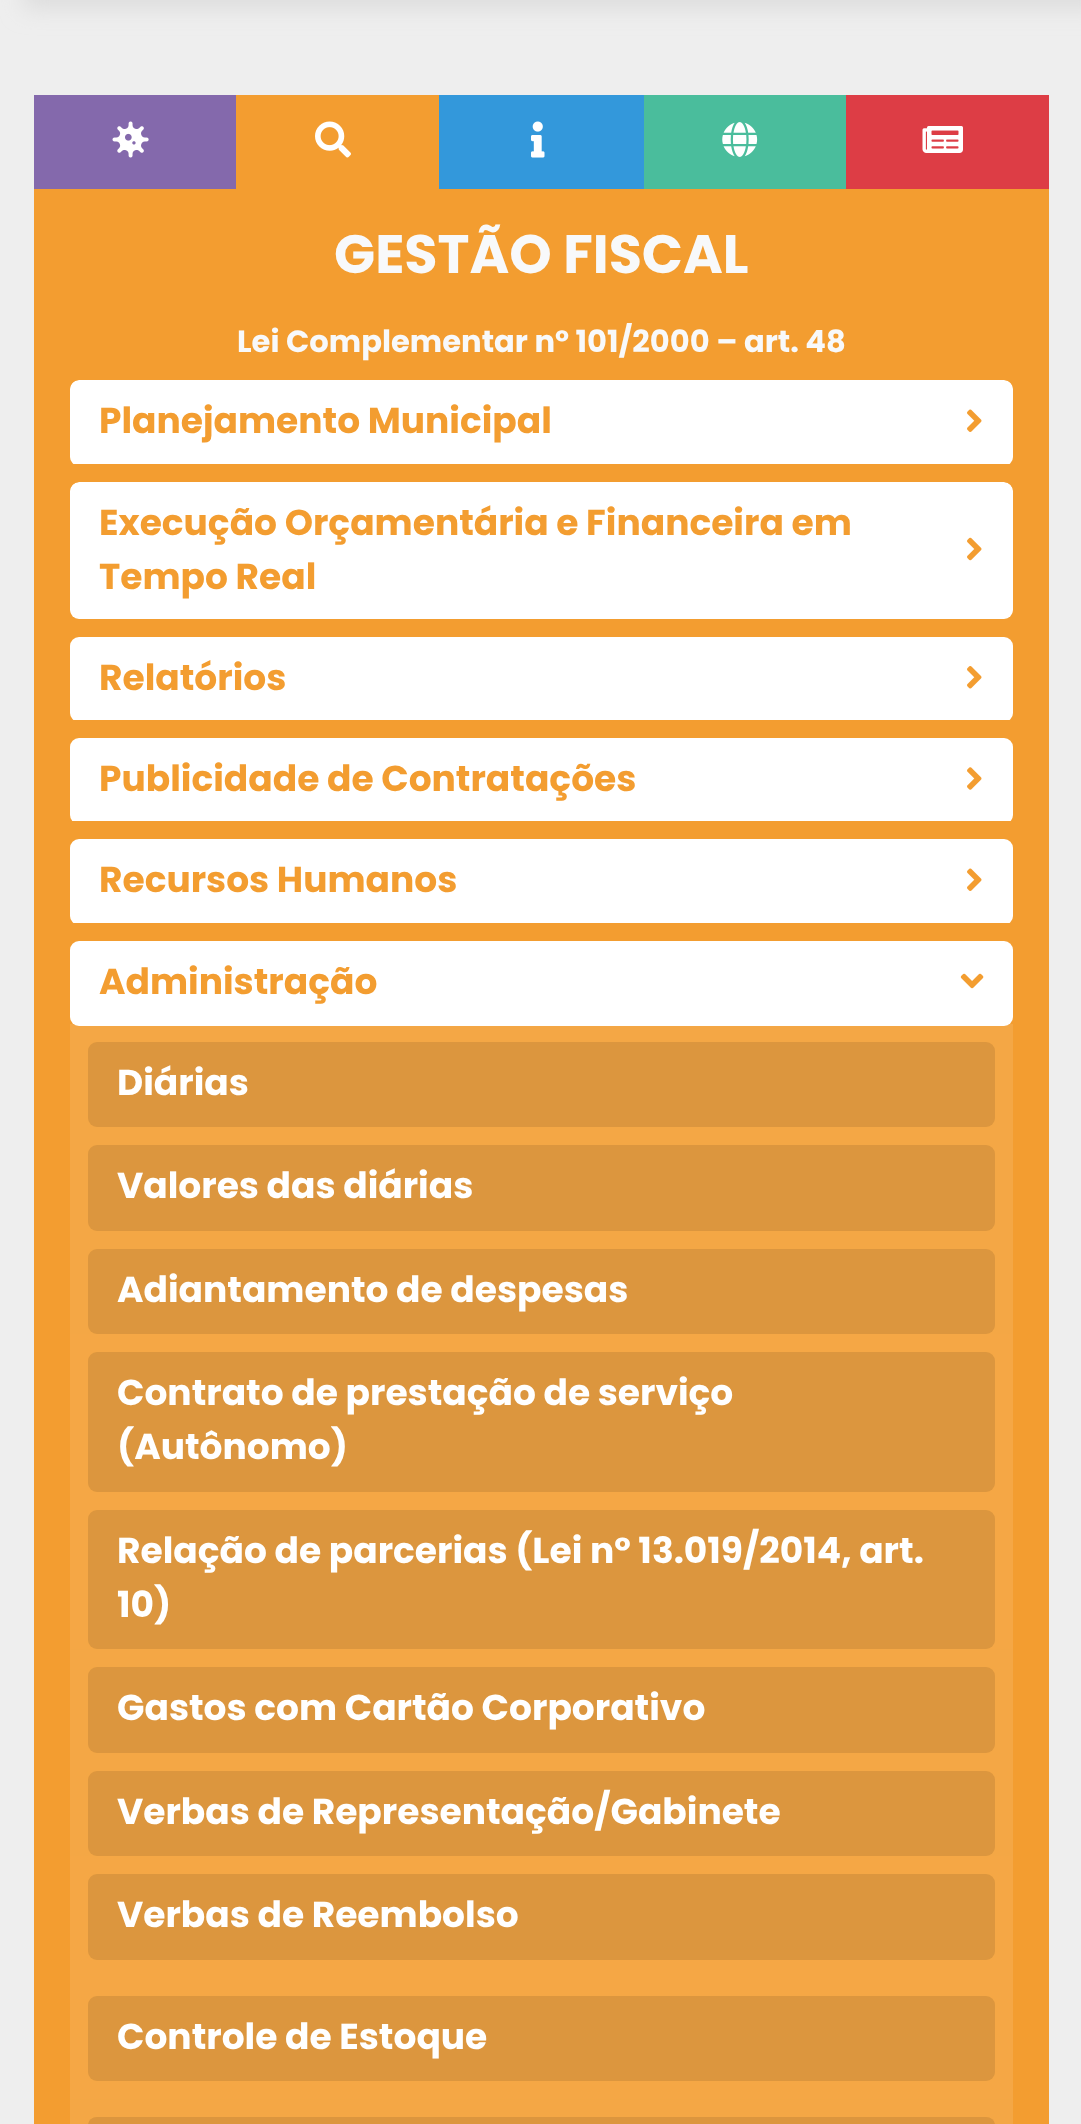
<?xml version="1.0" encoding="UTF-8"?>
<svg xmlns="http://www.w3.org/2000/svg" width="1081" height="2124">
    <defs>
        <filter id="blur1" x="-50%" y="-200%" width="200%" height="500%"><feGaussianBlur stdDeviation="11"/></filter>
        <clipPath id="clip1"><path d="M 79 380 H 1004 C 1009 380 1013 384 1013 389 V 464 H 70 V 389 C 70 384 74 380 79 380 Z"/></clipPath>
        <clipPath id="clip2"><rect x="70" y="482" width="943" height="137" rx="9"/></clipPath>
        <clipPath id="clip3"><rect x="70" y="637" width="943" height="83"/></clipPath>
        <clipPath id="clip4"><rect x="70" y="738" width="943" height="83"/></clipPath>
        <clipPath id="clip5"><rect x="70" y="839" width="943" height="84"/></clipPath>
    </defs>
    <rect width="100%" height="100%" fill="#EEEEEE"/>
    <rect x="23" y="-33" width="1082" height="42" fill="#DDDDDD" filter="url(#blur1)"/>
    <rect x="34" y="95" width="202" height="94" fill="#8469AC"/>
    <image x="112" y="121" width="37" height="37" href="img_01.png"/>
    <rect x="236" y="95" width="203" height="94" fill="#F39D30"/>
    <image x="315" y="121" width="36" height="37" href="img_02.png"/>
    <rect x="439" y="95" width="205" height="94" fill="#3398DB"/>
    <image x="531" y="121" width="14" height="37" href="img_03.png"/>
    <rect x="644" y="95" width="202" height="94" fill="#4ABD9C"/>
    <image x="722" y="122" width="36" height="35" href="img_04.png"/>
    <rect x="846" y="95" width="203" height="94" fill="#DD3D45"/>
    <image x="922" y="126" width="41" height="27" href="img_05.png"/>
    <rect x="34" y="189" width="1015" height="1935" fill="#F39D30"/>
    <text x="334" y="273" font-family="Poppins" font-size="54" font-weight="700" fill="#F8F9FA">GESTÃO FISCAL</text>
    <text x="237" y="352" font-family="Poppins" font-size="30.6" font-weight="700" fill="#F8F9FA">Lei Complementar nº 101/2000 – art. 48</text>
    <g clip-path="url(#clip1)">
        <rect x="70" y="380" width="943" height="86" rx="9" fill="#FFFFFF"/>
    </g>
    <text x="99" y="433" font-family="Poppins" font-size="36" font-weight="700" fill="#F39D30">Planejamento Municipal</text>
    <image x="967" y="409" width="15" height="23" href="img_06.png"/>
    <g clip-path="url(#clip2)">
        <rect x="70" y="482" width="943" height="139" rx="9" fill="#FFFFFF"/>
    </g>
    <text font-family="Poppins" font-size="36" font-weight="700" fill="#F39D30">
        <tspan x="99" y="535">Execução Orçamentária e Financeira em</tspan>
        <tspan x="99" y="589">Tempo Real</tspan>
    </text>
    <image x="967" y="537" width="15" height="24" href="img_07.png"/>
    <g clip-path="url(#clip3)">
        <rect x="70" y="637" width="943" height="85" rx="9" fill="#FFFFFF"/>
    </g>
    <text x="99" y="690" font-family="Poppins" font-size="36" font-weight="700" fill="#F39D30">Relatórios</text>
    <image x="967" y="666" width="15" height="23" href="img_08.png"/>
    <g clip-path="url(#clip4)">
        <rect x="70" y="738" width="943" height="86" rx="9" fill="#FFFFFF"/>
    </g>
    <text x="99" y="791" font-family="Poppins" font-size="36" font-weight="700" fill="#F39D30">Publicidade de Contratações</text>
    <image x="967" y="767" width="15" height="23" href="img_09.png"/>
    <g clip-path="url(#clip5)">
        <rect x="70" y="839" width="943" height="86" rx="9" fill="#FFFFFF"/>
    </g>
    <text x="99" y="892" font-family="Poppins" font-size="36" font-weight="700" fill="#F39D30">Recursos Humanos</text>
    <image x="967" y="868" width="15" height="23" href="img_06.png"/>
    <rect x="70" y="941" width="943" height="85" rx="9" fill="#FFFFFF"/>
    <text x="99" y="994" font-family="Poppins" font-size="36" font-weight="700" fill="#F39D30">Administração</text>
    <image x="960" y="973" width="24" height="16" href="img_10.png"/>
    <rect x="70" y="1024" width="943" height="103" fill="#FFFFFF" fill-opacity="0.1"/>
    <rect x="88" y="1042" width="907" height="85" rx="9" fill="#DC963E"/>
    <text x="117" y="1095" font-family="Poppins" font-size="36" font-weight="700" fill="#FFFFFF">Diárias</text>
    <rect x="70" y="1127" width="943" height="207" fill="#F4A745"/>
    <rect x="88" y="1145" width="907" height="86" rx="9" fill="#DC963E"/>
    <text x="117" y="1198" font-family="Poppins" font-size="36" font-weight="700" fill="#FFFFFF">Valores das diárias</text>
    <rect x="88" y="1249" width="907" height="85" rx="9" fill="#DC963E"/>
    <text x="117" y="1302" font-family="Poppins" font-size="36" font-weight="700" fill="#FFFFFF">Adiantamento de despesas</text>
    <rect x="70" y="1334" width="943" height="315" fill="#F5A745"/>
    <rect x="88" y="1352" width="907" height="140" rx="9" fill="#DC963E"/>
    <text font-family="Poppins" font-size="36" font-weight="700" fill="#FFFFFF">
        <tspan x="117" y="1405">Contrato de prestação de serviço</tspan>
        <tspan x="117" y="1459">(Autônomo)</tspan>
    </text>
    <rect x="88" y="1510" width="907" height="139" rx="9" fill="#DC963E"/>
    <text font-family="Poppins" font-size="36" font-weight="700" fill="#FFFFFF">
        <tspan x="117" y="1563">Relação de parcerias (Lei nº 13.019/2014, art.</tspan>
        <tspan x="117" y="1617">10)</tspan>
    </text>
    <rect x="70" y="1649" width="943" height="207" fill="#F4A745"/>
    <rect x="88" y="1667" width="907" height="86" rx="9" fill="#DC963E"/>
    <text x="117" y="1720" font-family="Poppins" font-size="36" font-weight="700" fill="#FFFFFF">Gastos com Cartão Corporativo</text>
    <rect x="88" y="1771" width="907" height="85" rx="9" fill="#DC963E"/>
    <text x="117" y="1824" font-family="Poppins" font-size="36" font-weight="700" fill="#FFFFFF">Verbas de Representação/Gabinete</text>
    <rect x="70" y="1856" width="943" height="243" fill="#F5A745"/>
    <rect x="88" y="1874" width="907" height="86" rx="9" fill="#DC963E"/>
    <text x="117" y="1927" font-family="Poppins" font-size="36" font-weight="700" fill="#FFFFFF">Verbas de Reembolso</text>
    <rect x="88" y="1996" width="907" height="85" rx="9" fill="#DC963E"/>
    <text x="117" y="2049" font-family="Poppins" font-size="36" font-weight="700" fill="#FFFFFF">Controle de Estoque</text>
    <rect x="70" y="2099" width="943" height="25" fill="#F4A745"/>
    <rect x="88" y="2117" width="907" height="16" rx="9" fill="#DC963E"/>
</svg>
